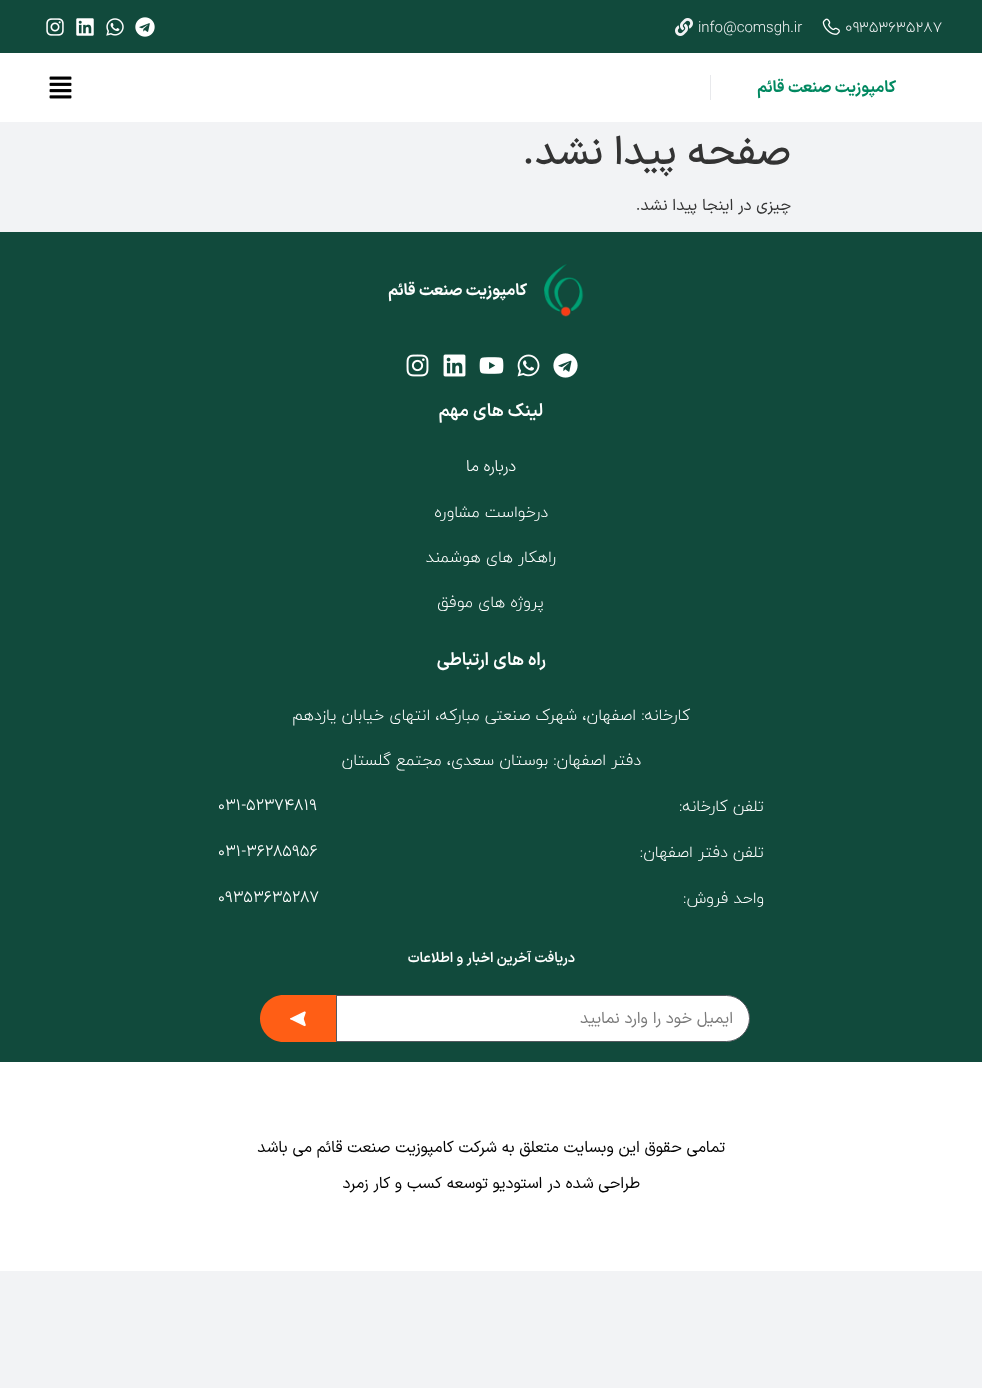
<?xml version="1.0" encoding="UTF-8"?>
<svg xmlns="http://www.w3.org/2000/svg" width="982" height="1388">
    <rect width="100%" height="100%" fill="#F2F3F5"/>
    <rect x="0" y="53" width="982" height="69" fill="#FFFFFF"/>
    <rect x="0" y="0" width="982" height="53" fill="#114A3C"/>
    <text x="845" y="32" font-family="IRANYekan" font-size="15" font-weight="300" fill="#F2F3F5">۰۹۳۵۳۶۳۵۲۸۷</text>
    <image x="822" y="18" width="18" height="17" href="img_01.png"/>
    <text x="698" y="32" font-family="IRANYekan" font-size="15" font-weight="300" fill="#F2F3F5">info@comsgh.ir</text>
    <image x="675" y="18" width="18" height="18" href="img_02.png"/>
    <image x="135" y="17" width="20" height="20" href="img_03.png"/>
    <image x="106" y="18" width="18" height="18" href="img_04.png"/>
    <image x="76" y="18" width="18" height="18" href="img_05.png"/>
    <image x="46" y="18" width="18" height="18" href="img_06.png"/>
    <rect x="710" y="75" width="1" height="25" fill="#E8E9EC"/>
    <text x="896" y="92" font-family="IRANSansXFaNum" font-size="16" font-weight="700" direction="rtl" fill="#008860">کامپوزیت صنعت قائم</text>
    <image x="49" y="76" width="23" height="23" href="img_07.png"/>
    <text x="791" y="164" font-family="IRANSansXFaNum" font-size="40" font-weight="500" direction="rtl" fill="#333333">صفحه پیدا نشد.</text>
    <text x="791" y="210" font-family="IRANSansXFaNum" font-size="16" direction="rtl" fill="#333333">چیزی در اینجا پیدا نشد.</text>
    <rect x="0" y="232" width="982" height="830" fill="#114A3C"/>
    <image x="544" y="264" width="40" height="53" href="img_08.png"/>
    <text x="527" y="295" font-family="IRANSansXFaNum" font-size="16" font-weight="700" direction="rtl" fill="#FFFFFF">کامپوزیت صنعت قائم</text>
    <image x="553" y="353" width="25" height="25" href="img_09.png"/>
    <image x="517" y="354" width="23" height="23" href="img_10.png"/>
    <image x="479" y="357" width="25" height="17" href="img_11.png"/>
    <image x="443" y="354" width="23" height="23" href="img_12.png"/>
    <image x="406" y="354" width="23" height="23" href="img_13.png"/>
    <text x="543" y="416" font-family="IRANSansXFaNum" font-size="18" font-weight="600" direction="rtl" fill="#FFFFFF">لینک های مهم</text>
    <text x="516" y="471" font-family="IRANSansXFaNum" font-size="16" font-weight="300" direction="rtl" fill="#FFFFFF">درباره ما</text>
    <text x="548" y="517" font-family="IRANYekan" font-size="16" font-weight="300" direction="rtl" fill="#FFFFFF">درخواست مشاوره</text>
    <text x="556" y="562" font-family="IRANYekan" font-size="16" font-weight="300" direction="rtl" fill="#FFFFFF">راهکار های هوشمند</text>
    <text x="544" y="607" font-family="IRANYekan" font-size="16" font-weight="300" direction="rtl" fill="#FFFFFF">پروژه های موفق</text>
    <text x="546" y="665" font-family="IRANSansXFaNum" font-size="18" font-weight="600" direction="rtl" fill="#FFFFFF">راه های ارتباطی</text>
    <text x="690" y="720" font-family="IRANYekan" font-size="16" font-weight="300" direction="rtl" fill="#FFFFFF">کارخانه: اصفهان، شهرک صنعتی مبارکه، انتهای خیابان یازدهم</text>
    <text x="641" y="765" font-family="IRANYekan" font-size="16" font-weight="300" direction="rtl" fill="#FFFFFF">دفتر اصفهان: بوستان سعدی، مجتمع گلستان</text>
    <text x="764" y="811" font-family="IRANYekan" font-size="16" font-weight="300" direction="rtl" fill="#FFFFFF">تلفن کارخانه:</text>
    <text x="218" y="810" font-family="IRANSansXFaNum" font-size="16" font-weight="300" fill="#FFFFFF">031-52374819</text>
    <text x="764" y="857" font-family="IRANYekan" font-size="16" font-weight="300" direction="rtl" fill="#FFFFFF">تلفن دفتر اصفهان:</text>
    <text x="218" y="856" font-family="IRANSansXFaNum" font-size="16" font-weight="300" fill="#FFFFFF">031-36285956</text>
    <text x="764" y="903" font-family="IRANYekan" font-size="16" font-weight="300" direction="rtl" fill="#FFFFFF">واحد فروش:</text>
    <text x="218" y="902" font-family="IRANSansXFaNum" font-size="16" font-weight="300" fill="#FFFFFF">09353635287</text>
    <text x="575" y="962" font-family="IRANSansXFaNum" font-size="14" font-weight="600" direction="rtl" fill="#FFFFFF">دریافت آخرین اخبار و اطلاعات</text>
    <path d="M 336.5 995.5 H 726.5 C 739 995.5 749.5 1006 749.5 1018.5 C 749.5 1031 739 1041.5 726.5 1041.5 H 336.5 Z" fill="#FFFFFF" stroke="#54595F"/>
    <text x="733" y="1023" font-family="IRANSansXFaNum" font-size="16" direction="rtl" fill="#7A7A7A">ایمیل خود را وارد نمایید</text>
    <path d="M 283.5 995 H 336 V 1042 H 283.5 C 270.5 1042 260 1031.5 260 1018.5 C 260 1005.5 270.5 995 283.5 995 Z" fill="#FF5E15"/>
    <image x="290" y="1011" width="16" height="16" href="img_14.png"/>
    <rect x="0" y="1062" width="982" height="209" fill="#FFFFFF"/>
    <text x="725" y="1152" font-family="IRANSansXFaNum" font-size="16" direction="rtl" fill="#000000">تمامی حقوق این وبسایت متعلق به شرکت کامپوزیت صنعت قائم می باشد</text>
    <text x="640" y="1188" font-family="IRANSansXFaNum" font-size="16" direction="rtl" fill="#000000">طراحی شده در استودیو توسعه کسب و کار زمرد</text>
</svg>
